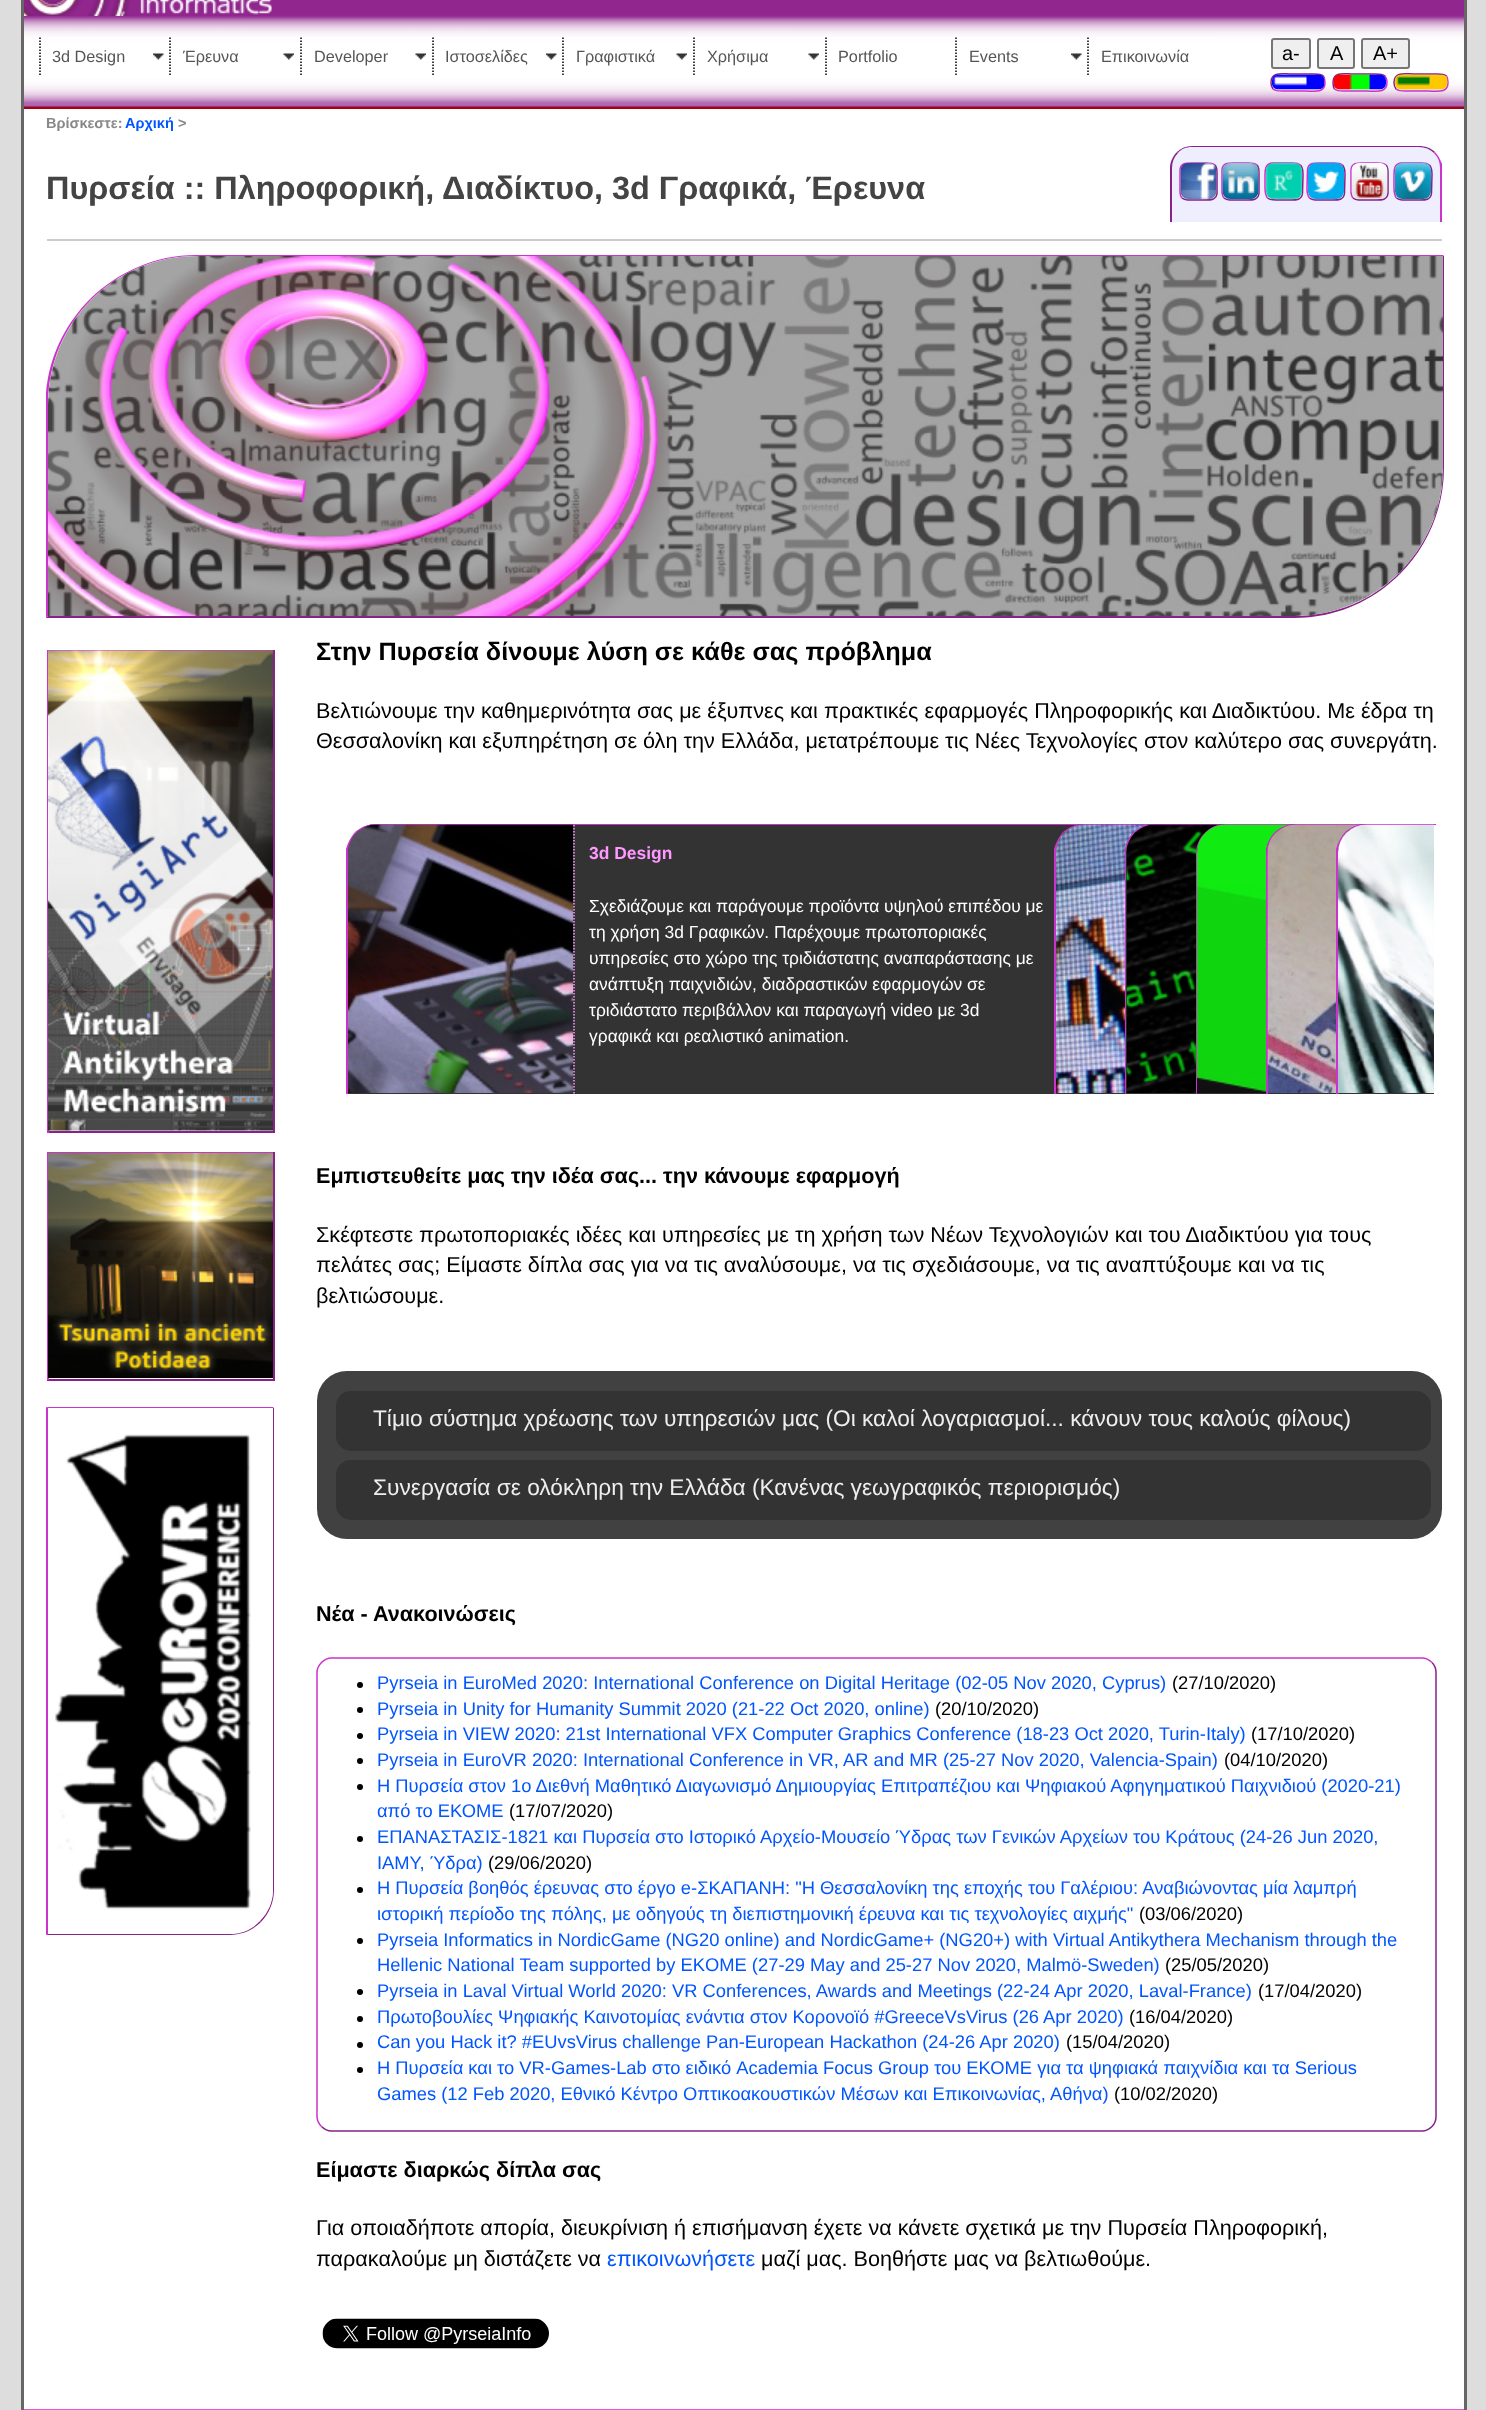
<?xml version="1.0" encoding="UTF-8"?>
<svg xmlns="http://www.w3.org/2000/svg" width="1486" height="2410">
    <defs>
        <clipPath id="clip1"><rect x="317" y="794" width="1117" height="300"/></clipPath>
    </defs>
    <rect width="100%" height="100%" fill="#DDDDDD"/>
    <rect x="24" y="16" width="1440" height="2393" fill="#FFFFFF"/>
    <rect x="1464" y="0" width="3" height="2410" fill="#666666"/>
    <rect x="21" y="0" width="3" height="2410" fill="#666666"/>
    <image x="24" y="0" width="1440" height="107" href="img_01.png"/>
    <rect x="24" y="107" width="1440" height="2" fill="#AA0000"/>
    <image x="24" y="0" width="248" height="16" href="img_02.png"/>
    <path d="M 40 37.5 V 76.5" fill="none" stroke="#000000" stroke-width="1.5" stroke-dasharray="1.5 1.5"/>
    <rect x="41" y="38" width="129" height="1" fill="#FFFFFF"/>
    <image x="153" y="53" width="11" height="7" href="img_03.png"/>
    <text x="52" y="62" font-family="Liberation Sans" font-size="16.25" fill="#555555">3d Design</text>
    <path d="M 170 37.5 V 76.5" fill="none" stroke="#000000" stroke-width="1.5" stroke-dasharray="1.5 1.5"/>
    <rect x="171" y="38" width="129" height="1" fill="#FFFFFF"/>
    <image x="283" y="53" width="11" height="7" href="img_04.png"/>
    <text x="183" y="62" font-family="Liberation Sans" font-size="16.25" fill="#555555">Έρευνα</text>
    <path d="M 301 37.5 V 76.5" fill="none" stroke="#000000" stroke-width="1.5" stroke-dasharray="1.5 1.5"/>
    <rect x="302" y="38" width="130" height="1" fill="#FFFFFF"/>
    <image x="415" y="53" width="11" height="7" href="img_04.png"/>
    <text x="314" y="62" font-family="Liberation Sans" font-size="16.25" fill="#555555">Developer</text>
    <path d="M 433 37.5 V 76.5" fill="none" stroke="#000000" stroke-width="1.5" stroke-dasharray="1.5 1.5"/>
    <rect x="434" y="38" width="129" height="1" fill="#FFFFFF"/>
    <image x="546" y="53" width="11" height="7" href="img_03.png"/>
    <text x="445" y="62" font-family="Liberation Sans" font-size="16.25" fill="#555555">Ιστοσελίδες</text>
    <path d="M 563 37.5 V 76.5" fill="none" stroke="#000000" stroke-width="1.5" stroke-dasharray="1.5 1.5"/>
    <rect x="564" y="38" width="129" height="1" fill="#FFFFFF"/>
    <image x="676" y="53" width="11" height="7" href="img_04.png"/>
    <text x="576" y="62" font-family="Liberation Sans" font-size="16.25" fill="#555555">Γραφιστικά</text>
    <path d="M 694 37.5 V 76.5" fill="none" stroke="#000000" stroke-width="1.5" stroke-dasharray="1.5 1.5"/>
    <rect x="695" y="38" width="130" height="1" fill="#FFFFFF"/>
    <image x="808" y="53" width="11" height="7" href="img_05.png"/>
    <text x="707" y="62" font-family="Liberation Sans" font-size="16.25" fill="#555555">Χρήσιμα</text>
    <path d="M 826 37.5 V 76.5" fill="none" stroke="#000000" stroke-width="1.5" stroke-dasharray="1.5 1.5"/>
    <rect x="827" y="38" width="129" height="1" fill="#FFFFFF"/>
    <text x="838" y="62" font-family="Liberation Sans" font-size="16.25" fill="#555555">Portfolio</text>
    <path d="M 956 37.5 V 76.5" fill="none" stroke="#000000" stroke-width="1.5" stroke-dasharray="1.5 1.5"/>
    <rect x="957" y="38" width="131" height="1" fill="#FFFFFF"/>
    <image x="1071" y="53" width="11" height="7" href="img_06.png"/>
    <text x="969" y="62" font-family="Liberation Sans" font-size="16.25" fill="#555555">Events</text>
    <path d="M 1088 37.5 V 76.5" fill="none" stroke="#000000" stroke-width="1.5" stroke-dasharray="1.5 1.5"/>
    <rect x="1089" y="38" width="129" height="1" fill="#FFFFFF"/>
    <text x="1101" y="62" font-family="Liberation Sans" font-size="16.25" fill="#555555">Επικοινωνία</text>
    <rect x="1272" y="39" width="38" height="29" rx="2" fill="#EFEFEF" stroke="#767676" stroke-width="2"/>
    <text x="1282" y="60" font-family="Liberation Sans" font-size="20" fill="#000000">a-</text>
    <rect x="1318" y="39" width="36" height="29" rx="2" fill="#EFEFEF" stroke="#767676" stroke-width="2"/>
    <text x="1330" y="60" font-family="Liberation Sans" font-size="20" fill="#000000">A</text>
    <rect x="1362" y="39" width="47" height="29" rx="2" fill="#EFEFEF" stroke="#767676" stroke-width="2"/>
    <text x="1373" y="60" font-family="Liberation Sans" font-size="20" fill="#000000">A+</text>
    <path d="M 1323.5 76 C 1325 78 1325 80 1325 82.5 C 1325 94 1313.5 91 1305 91 H 1285 C 1281 91 1276 91.5 1273 89" fill="none" stroke="#CC33CC" stroke-width="1.5"/>
    <path d="M 1273 89 C 1271.5 87 1271 85 1271 82.5 C 1271 71 1283 74 1291.5 74 H 1312 C 1315.5 74 1320.5 73.5 1323.5 76" fill="none" stroke="#882288" stroke-width="1.5"/>
    <path d="M 1385 76 C 1386.5 78 1387 80 1387 82.5 C 1387 94 1375 91 1366.5 91 H 1346 C 1342.5 91 1337.5 91.5 1334.5 89" fill="none" stroke="#CC33CC" stroke-width="1.5"/>
    <path d="M 1334.5 89 C 1333 87 1333 85 1333 82.5 C 1333 71 1344.5 74 1353 74 H 1373 C 1377 74 1382 73.5 1385 76" fill="none" stroke="#882288" stroke-width="1.5"/>
    <path d="M 1446.5 76 C 1448 78 1448 80 1448 82.5 C 1448 94 1436.5 91 1428 91 H 1408 C 1404 91 1399 91.5 1396 89" fill="none" stroke="#CC33CC" stroke-width="1.5"/>
    <path d="M 1396 89 C 1394.5 87 1394 85 1394 82.5 C 1394 71 1406 74 1414.5 74 H 1435 C 1438.5 74 1443.5 73.5 1446.5 76" fill="none" stroke="#882288" stroke-width="1.5"/>
    <image x="1272" y="74" width="53" height="16" href="img_07.png"/>
    <image x="1333" y="74" width="53" height="16" href="img_08.png"/>
    <image x="1395" y="74" width="53" height="16" href="img_09.png"/>
    <text x="46" y="128" font-family="Liberation Sans" font-size="14.5" font-weight="700" fill="#888888">Βρίσκεστε:</text>
    <text x="125" y="128" font-family="Liberation Sans" font-size="14.5" font-weight="700" fill="#0055FF">Αρχική</text>
    <text x="178" y="128" font-family="Liberation Sans" font-size="14.5" font-weight="700" fill="#888888">&gt;</text>
    <text x="46" y="199" font-family="Liberation Sans" font-size="32.4" font-weight="700" fill="#444444">Πυρσεία :: Πληροφορική, Διαδίκτυο, 3d Γραφικά, Έρευνα</text>
    <path d="M 1193 146 H 1419 C 1431.5 146 1442 156.5 1442 169 V 222 H 1170 V 169 C 1170 156.5 1180.5 146 1193 146 Z" fill="#EEEEFF"/>
    <path d="M 1192 146 H 1419 C 1425 146 1431 148 1435 152 L 1434 153 C 1430 149 1425 147 1419 147 H 1192 C 1186 147 1181 149 1178 153 L 1177 152 C 1181 148 1186 146 1192 146 Z" fill="#882288"/>
    <path d="M 1435 152 C 1438 155 1440 159 1442 164 V 222 H 1440 V 168 C 1440 162 1438 157 1434 153 Z" fill="#CC33CC"/>
    <path d="M 1170 222 H 1172 V 168 C 1172 162 1174 157 1178 153 L 1177 152 C 1173 156 1170 162 1170 168 Z" fill="#882288"/>
    <path d="M 1215 165 C 1217.5 168 1217 171 1217 174.5 V 193.5 C 1216 200 1211 200 1205.5 200 H 1195 C 1190.5 200 1185.5 201 1182 198" fill="none" stroke="#882288" stroke-width="1.5"/>
    <path d="M 1182 198 C 1179.5 195 1180 192 1180 188.5 V 169.5 C 1181 163 1186 163 1191.5 163 H 1202 C 1206.5 163 1211.5 162 1215 165" fill="none" stroke="#CC33CC" stroke-width="1.5"/>
    <path d="M 1257 165 C 1259.5 168 1259 171 1259 174.5 V 193.5 C 1258 200 1253 200 1247.5 200 H 1237 C 1232.5 200 1227.5 201 1224 198" fill="none" stroke="#882288" stroke-width="1.5"/>
    <path d="M 1224 198 C 1221.5 195 1222 192 1222 188.5 V 169.5 C 1223 163 1228 163 1233.5 163 H 1244 C 1248.5 163 1253.5 162 1257 165" fill="none" stroke="#CC33CC" stroke-width="1.5"/>
    <path d="M 1300.5 165 C 1303 168 1303 171 1303 174.5 L 1302.5 193.5 C 1301.5 200 1296.5 200 1291 200 H 1280.5 C 1276 200 1271 201 1267.5 198" fill="none" stroke="#882288" stroke-width="1.5"/>
    <path d="M 1267.5 198 C 1264.5 194.5 1265 189.5 1265 185 V 174.5 C 1265 169 1265.5 164 1272 163 H 1291 C 1294.5 163 1297.5 162.5 1300.5 165" fill="none" stroke="#CC33CC" stroke-width="1.5"/>
    <path d="M 1342.5 165 C 1345 168 1345 171 1345 174.5 L 1344.5 193.5 C 1343.5 200 1338.5 200 1333 200 H 1322.5 C 1318 200 1313 201 1309.5 198" fill="none" stroke="#882288" stroke-width="1.5"/>
    <path d="M 1309.5 198 C 1307 195 1307 192 1307 188.5 L 1307.5 169.5 C 1308.5 163 1313.5 163 1319 163 H 1329.5 C 1334 163 1339 162 1342.5 165" fill="none" stroke="#CC33CC" stroke-width="1.5"/>
    <path d="M 1386 165 C 1388.5 168 1388 171 1388 174.5 V 193.5 C 1387 200 1382 200 1376.5 200 H 1366 C 1361.5 200 1356.5 201 1353 198" fill="none" stroke="#882288" stroke-width="1.5"/>
    <path d="M 1353 198 C 1350.5 195 1351 192 1351 188.5 V 169.5 C 1352 163 1357 163 1362.5 163 H 1373 C 1377.5 163 1382.5 162 1386 165" fill="none" stroke="#CC33CC" stroke-width="1.5"/>
    <path d="M 1429.5 165 C 1432 168 1432 171 1432 174.5 L 1431.5 193.5 C 1430.5 200 1425.5 200 1420 200 H 1409.5 C 1405 200 1400 201 1396.5 198" fill="none" stroke="#882288" stroke-width="1.5"/>
    <path d="M 1396.5 198 C 1393.5 194.5 1394 189.5 1394 185 V 174.5 C 1394 169 1394.5 164 1401 163 H 1420 C 1423.5 163 1426.5 162.5 1429.5 165" fill="none" stroke="#CC33CC" stroke-width="1.5"/>
    <image x="1180" y="163" width="37" height="36" href="img_10.png"/>
    <image x="1222" y="163" width="37" height="36" href="img_11.png"/>
    <image x="1266" y="163" width="36" height="36" href="img_12.png"/>
    <image x="1308" y="163" width="36" height="36" href="img_13.png"/>
    <image x="1351" y="163" width="37" height="36" href="img_14.png"/>
    <image x="1395" y="163" width="36" height="36" href="img_15.png"/>
    <rect x="47" y="239" width="1395" height="2" fill="#CCCCCC"/>
    <path d="M 196 255 C 155 255 118 272 90 299 L 91 300 C 118 273 155 256 196 256 H 1443 L 1444 255 Z" fill="#CC33CC"/>
    <path d="M 1444 256 V 468 C 1444 509 1427 547 1400 574 L 1399 573 C 1426 546 1443 509 1443 468 V 256 Z" fill="#882288"/>
    <path d="M 46 618 H 1294 C 1336 618 1373 601 1400 574 L 1399 573 C 1373 600 1335 616 1294 616 H 48 Z" fill="#882288"/>
    <path d="M 46 618 V 393 C 49 356 66 323 90 299 L 91 300 C 64 327 48 364 48 405 V 616 Z" fill="#CC33CC"/>
    <image x="48" y="256" width="1395" height="360" href="img_16.png"/>
    <rect x="47" y="650" width="228" height="1" fill="#CC33CC"/>
    <rect x="273" y="650" width="2" height="483" fill="#882288"/>
    <rect x="47" y="1131" width="228" height="2" fill="#882288"/>
    <rect x="47" y="650" width="2" height="483" fill="#CC33CC"/>
    <image x="48" y="650" width="225" height="481" href="img_17.png"/>
    <rect x="47" y="1152" width="228" height="1" fill="#CC33CC"/>
    <rect x="273" y="1152" width="2" height="228" fill="#882288"/>
    <rect x="47" y="1379" width="228" height="2" fill="#882288"/>
    <rect x="47" y="1152" width="2" height="228" fill="#CC33CC"/>
    <image x="48" y="1153" width="225" height="225" href="img_18.png"/>
    <path d="M 48 1408 H 273 L 274 1407 H 46 Z" fill="#CC33CC"/>
    <path d="M 274 1408 V 1890 C 274 1902 269 1914 261 1922 L 260 1921 C 268 1913 273 1902 273 1890 V 1408 Z" fill="#882288"/>
    <path d="M 46 1935 H 230 C 242 1935 253 1930 261 1922 L 260 1921 C 253 1929 242 1934 230 1934 H 48 Z" fill="#882288"/>
    <path d="M 46 1935 L 48 1934 V 1408 L 46 1407 Z" fill="#CC33CC"/>
    <image x="55" y="1434" width="218" height="488" href="img_19.png"/>
    <text x="316" y="660" font-family="Liberation Sans" font-size="25.25" font-weight="700" fill="#000000">Στην Πυρσεία δίνουμε λύση σε κάθε σας πρόβλημα</text>
    <text font-family="Liberation Sans" font-size="21.6" fill="#000000">
        <tspan x="316" y="718">Βελτιώνουμε την καθημερινότητα σας με έξυπνες και πρακτικές εφαρμογές Πληροφορικής και Διαδικτύου. Με έδρα τη</tspan>
        <tspan x="316" y="748">Θεσσαλονίκη και εξυπηρέτηση σε όλη την Ελλάδα, μετατρέπουμε τις Νέες Τεχνολογίες στον καλύτερο σας συνεργάτη.</tspan>
    </text>
    <path d="M 377 824 H 1085 V 1094 H 347 V 854 C 347 837.5 360.5 824 377 824 Z" fill="#333333"/>
    <path d="M 376 824 C 368 824 361 827 355 832 L 356 833 C 362 828 369 825 376 825 H 1083 L 1084 824 Z" fill="#CC33CC"/>
    <g clip-path="url(#clip1)">
        <path d="M 346 1104 L 348 1102 V 854 C 348 846 351 839 356 833 L 355 832 C 351 837 348 842 346 849 Z" fill="#CC33CC"/>
        <path d="M 574 825 V 1125" fill="none" stroke="#FF99FF" stroke-width="1.5" stroke-dasharray="1.5 1.5"/>
    </g>
    <image x="348" y="824" width="225" height="269" href="img_20.png"/>
    <text x="589" y="859" font-family="Liberation Sans" font-size="17.45" font-weight="700" fill="#FF99FF">3d Design</text>
    <text font-family="Liberation Sans" font-size="17.45" fill="#FFFFFF">
        <tspan x="589" y="912">Σχεδιάζουμε και παράγουμε προϊόντα υψηλού επιπέδου με</tspan>
        <tspan x="589" y="938">τη χρήση 3d Γραφικών. Παρέχουμε πρωτοποριακές</tspan>
        <tspan x="589" y="964">υπηρεσίες στο χώρο της τριδιάστατης αναπαράστασης με</tspan>
        <tspan x="589" y="990">ανάπτυξη παιχνιδιών, διαδραστικών εφαρμογών σε</tspan>
        <tspan x="589" y="1016">τριδιάστατο περιβάλλον και παραγωγή video με 3d</tspan>
        <tspan x="589" y="1042">γραφικά και ρεαλιστικό animation.</tspan>
    </text>
    <path d="M 1085 824 H 1155 V 1094 H 1055 V 854 C 1055 837.5 1068.5 824 1085 824 Z" fill="#333333"/>
    <path d="M 1084 824 C 1076 824 1069 827 1063 832 L 1064 833 C 1070 828 1077 825 1084 825 H 1154 V 824 Z" fill="#CC33CC"/>
    <g clip-path="url(#clip1)">
        <path d="M 1054 1104 L 1056 1102 V 854 C 1056 846 1059 839 1064 833 L 1063 832 C 1059 837 1056 842 1054 849 Z" fill="#CC33CC"/>
    </g>
    <image x="1056" y="824" width="98" height="269" href="img_21.png"/>
    <path d="M 1155 824 H 1226 V 1094 H 1125 V 854 C 1125 837.5 1138.5 824 1155 824 Z" fill="#333333"/>
    <path d="M 1155 824 C 1147 824 1139 827 1134 832 L 1135 833 C 1140 828 1147 825 1155 825 H 1224 L 1225 824 Z" fill="#CC33CC"/>
    <g clip-path="url(#clip1)">
        <path d="M 1125 1104 L 1127 1102 H 1126 V 854 C 1126 846 1129 839 1135 833 L 1134 832 C 1128 838 1125 845 1125 854 Z" fill="#CC33CC"/>
    </g>
    <image x="1126" y="824" width="98" height="269" href="img_22.png"/>
    <path d="M 1226 824 H 1296 V 1094 H 1196 V 854 C 1196 837.5 1209.5 824 1226 824 Z" fill="#333333"/>
    <path d="M 1226 824 C 1218 824 1210 827 1205 833 L 1206 834 C 1211 828 1218 825 1226 825 H 1294 V 826 L 1296 824 Z" fill="#CC33CC"/>
    <g clip-path="url(#clip1)">
        <path d="M 1205 833 C 1199 838 1196 846 1196 854 V 1104 L 1198 1102 H 1197 V 854 C 1197 846 1200 839 1206 834 Z" fill="#CC33CC"/>
    </g>
    <image x="1197" y="824" width="98" height="269" href="img_23.png"/>
    <path d="M 1296 824 H 1367 V 1094 H 1266 V 854 C 1266 837.5 1279.5 824 1296 824 Z" fill="#333333"/>
    <path d="M 1296 824 C 1288 824 1280 827 1275 832 L 1276 834 C 1281 828 1288 825 1296 825 H 1365 L 1366 824 Z" fill="#CC33CC"/>
    <g clip-path="url(#clip1)">
        <path d="M 1266 1104 L 1268 1102 V 854 C 1268 846 1271 839 1276 834 L 1275 832 C 1269 838 1266 845 1266 854 Z" fill="#CC33CC"/>
    </g>
    <image x="1267" y="824" width="98" height="269" href="img_24.png"/>
    <path d="M 1367 824 H 1434 V 1094 H 1337 V 854 C 1337 837.5 1350.5 824 1367 824 Z" fill="#333333"/>
    <path d="M 1366 824 C 1358 824 1351 827 1345 832 L 1346 833 C 1352 828 1359 825 1366 825 H 1436 V 824 Z" fill="#CC33CC"/>
    <g clip-path="url(#clip1)">
        <path d="M 1336 1104 L 1338 1102 V 854 C 1338 846 1341 839 1346 833 L 1345 832 C 1341 837 1338 842 1336 849 Z" fill="#CC33CC"/>
    </g>
    <image x="1338" y="824" width="96" height="269" href="img_25.png"/>
    <text x="316" y="1183" font-family="Liberation Sans" font-size="21.6" font-weight="700" fill="#000000">Εμπιστευθείτε μας την ιδέα σας... την κάνουμε εφαρμογή</text>
    <text font-family="Liberation Sans" font-size="21.6" fill="#000000">
        <tspan x="316" y="1242">Σκέφτεστε πρωτοποριακές ιδέες και υπηρεσίες με τη χρήση των Νέων Τεχνολογιών και του Διαδικτύου για τους</tspan>
        <tspan x="316" y="1272">πελάτες σας; Είμαστε δίπλα σας για να τις αναλύσουμε, να τις σχεδιάσουμε, να τις αναπτύξουμε και να τις</tspan>
        <tspan x="316" y="1303">βελτιώσουμε.</tspan>
    </text>
    <rect x="317" y="1371" width="1125" height="168" rx="30" fill="#414141"/>
    <rect x="336" y="1391" width="1095" height="60" rx="15" fill="#333333"/>
    <text x="373" y="1426" font-family="Liberation Sans" font-size="22.7" fill="#EEEEEE">Τίμιο σύστημα χρέωσης των υπηρεσιών μας (Οι καλοί λογαριασμοί... κάνουν τους καλούς φίλους)</text>
    <rect x="336" y="1460" width="1095" height="60" rx="15" fill="#333333"/>
    <text x="373" y="1495" font-family="Liberation Sans" font-size="22.7" fill="#EEEEEE">Συνεργασία σε ολόκληρη την Ελλάδα (Κανένας γεωγραφικός περιορισμός)</text>
    <text x="316" y="1621" font-family="Liberation Sans" font-size="21.6" font-weight="700" fill="#000000">Νέα - Ανακοινώσεις</text>
    <path d="M 1432 1662.5 C 1434.5 1665 1436 1668.5 1436 1672.5 V 2116.5 C 1436 2120.5 1434.5 2124 1432 2126.5 C 1429.5 2129 1426 2131 1422 2131 H 331.5 C 327.5 2131 324 2129 321.5 2126.5" fill="none" stroke="#882288" stroke-width="1.5"/>
    <path d="M 321.5 2126.5 C 319 2124 317 2120.5 317 2116.5 V 1672.5 C 317 1668.5 319 1665 321.5 1662.5 C 324 1660 327.5 1658 331.5 1658 H 1422 C 1426 1658 1429.5 1660 1432 1662.5" fill="none" stroke="#CC33CC" stroke-width="1.5"/>
    <circle cx="360" cy="1685" r="3" fill="#000000"/>
    <text x="377" y="1689" font-family="Liberation Sans" font-size="18.35" fill="#0055FF">Pyrseia in EuroMed 2020: International Conference on Digital Heritage (02-05 Nov 2020, Cyprus)</text>
    <text x="1172" y="1689" font-family="Liberation Sans" font-size="18.35" fill="#000000">(27/10/2020)</text>
    <circle cx="360" cy="1710" r="3" fill="#000000"/>
    <text x="377" y="1715" font-family="Liberation Sans" font-size="18.35" fill="#0055FF">Pyrseia in Unity for Humanity Summit 2020 (21-22 Oct 2020, online)</text>
    <text x="935" y="1715" font-family="Liberation Sans" font-size="18.35" fill="#000000">(20/10/2020)</text>
    <circle cx="360" cy="1736" r="3" fill="#000000"/>
    <text x="377" y="1740" font-family="Liberation Sans" font-size="18.35" fill="#0055FF">Pyrseia in VIEW 2020: 21st International VFX Computer Graphics Conference (18-23 Oct 2020, Turin-Italy)</text>
    <text x="1251" y="1740" font-family="Liberation Sans" font-size="18.35" fill="#000000">(17/10/2020)</text>
    <circle cx="360" cy="1761" r="3" fill="#000000"/>
    <text x="377" y="1766" font-family="Liberation Sans" font-size="18.35" fill="#0055FF">Pyrseia in EuroVR 2020: International Conference in VR, AR and MR (25-27 Nov 2020, Valencia-Spain)</text>
    <text x="1224" y="1766" font-family="Liberation Sans" font-size="18.35" fill="#000000">(04/10/2020)</text>
    <circle cx="360" cy="1787" r="3" fill="#000000"/>
    <text font-family="Liberation Sans" font-size="18.35" fill="#0055FF">
        <tspan x="377" y="1792">Η Πυρσεία στον 1ο Διεθνή Μαθητικό Διαγωνισμό Δημιουργίας Επιτραπέζιου και Ψηφιακού Αφηγηματικού Παιχνιδιού (2020-21)</tspan>
        <tspan x="377" y="1817">από το ΕΚΟΜΕ</tspan>
    </text>
    <text x="509" y="1817" font-family="Liberation Sans" font-size="18.35" fill="#000000">(17/07/2020)</text>
    <circle cx="360" cy="1839" r="3" fill="#000000"/>
    <text font-family="Liberation Sans" font-size="18.35" fill="#0055FF">
        <tspan x="377" y="1843">ΕΠΑΝΑΣΤΑΣΙΣ-1821 και Πυρσεία στο Ιστορικό Αρχείο-Μουσείο Ύδρας των Γενικών Αρχείων του Κράτους (24-26 Jun 2020,</tspan>
        <tspan x="377" y="1869">IAMY, Ύδρα)</tspan>
    </text>
    <text x="488" y="1869" font-family="Liberation Sans" font-size="18.35" fill="#000000">(29/06/2020)</text>
    <circle cx="360" cy="1890" r="3" fill="#000000"/>
    <text font-family="Liberation Sans" font-size="18.35" fill="#0055FF">
        <tspan x="377" y="1894">Η Πυρσεία βοηθός έρευνας στο έργο e-ΣΚΑΠΑΝΗ: "Η Θεσσαλονίκη της εποχής του Γαλέριου: Αναβιώνοντας μία λαμπρή</tspan>
        <tspan x="377" y="1920">ιστορική περίοδο της πόλης, με οδηγούς τη διεπιστημονική έρευνα και τις τεχνολογίες αιχμής"</tspan>
    </text>
    <text x="1139" y="1920" font-family="Liberation Sans" font-size="18.35" fill="#000000">(03/06/2020)</text>
    <circle cx="360" cy="1941" r="3" fill="#000000"/>
    <text font-family="Liberation Sans" font-size="18.35" fill="#0055FF">
        <tspan x="377" y="1946">Pyrseia Informatics in NordicGame (NG20 online) and NordicGame+ (NG20+) with Virtual Antikythera Mechanism through the</tspan>
        <tspan x="377" y="1971">Hellenic National Team supported by EKOME (27-29 May and 25-27 Nov 2020, Malmö-Sweden)</tspan>
    </text>
    <text x="1165" y="1971" font-family="Liberation Sans" font-size="18.35" fill="#000000">(25/05/2020)</text>
    <circle cx="360" cy="1992" r="3" fill="#000000"/>
    <text x="377" y="1997" font-family="Liberation Sans" font-size="18.35" fill="#0055FF">Pyrseia in Laval Virtual World 2020: VR Conferences, Awards and Meetings (22-24 Apr 2020, Laval-France)</text>
    <text x="1258" y="1997" font-family="Liberation Sans" font-size="18.35" fill="#000000">(17/04/2020)</text>
    <circle cx="360" cy="2019" r="3" fill="#000000"/>
    <text x="377" y="2023" font-family="Liberation Sans" font-size="18.35" fill="#0055FF">Πρωτοβουλίες Ψηφιακής Καινοτομίας ενάντια στον Κορονοϊό #GreeceVsVirus (26 Apr 2020)</text>
    <text x="1129" y="2023" font-family="Liberation Sans" font-size="18.35" fill="#000000">(16/04/2020)</text>
    <circle cx="360" cy="2045" r="3" fill="#000000"/>
    <text x="377" y="2048" font-family="Liberation Sans" font-size="18.35" fill="#0055FF">Can you Hack it? #EUvsVirus challenge Pan-European Hackathon (24-26 Apr 2020)</text>
    <text x="1066" y="2048" font-family="Liberation Sans" font-size="18.35" fill="#000000">(15/04/2020)</text>
    <circle cx="360" cy="2070" r="3" fill="#000000"/>
    <text font-family="Liberation Sans" font-size="18.35" fill="#0055FF">
        <tspan x="377" y="2074">Η Πυρσεία και το VR-Games-Lab στο ειδικό Academia Focus Group του ΕΚΟΜΕ για τα ψηφιακά παιχνίδια και τα Serious</tspan>
        <tspan x="377" y="2100">Games (12 Feb 2020, Εθνικό Κέντρο Οπτικοακουστικών Μέσων και Επικοινωνίας, Αθήνα)</tspan>
    </text>
    <text x="1114" y="2100" font-family="Liberation Sans" font-size="18.35" fill="#000000">(10/02/2020)</text>
    <text x="316" y="2177" font-family="Liberation Sans" font-size="21.6" font-weight="700" fill="#000000">Είμαστε διαρκώς δίπλα σας</text>
    <text font-family="Liberation Sans" font-size="21.6" fill="#000000">
        <tspan x="316" y="2235">Για οποιαδήποτε απορία, διευκρίνιση ή επισήμανση έχετε να κάνετε σχετικά με την Πυρσεία Πληροφορική,</tspan>
        <tspan x="316" y="2266">παρακαλούμε μη διστάζετε να</tspan>
    </text>
    <text x="607" y="2266" font-family="Liberation Sans" font-size="21.6" fill="#0055FF">επικοινωνήσετε</text>
    <text x="761" y="2266" font-family="Liberation Sans" font-size="21.6" fill="#000000">μαζί μας. Βοηθήστε μας να βελτιωθούμε.</text>
    <image x="322" y="2318" width="227" height="31" href="img_26.png"/>
    <rect x="24" y="2409" width="1440" height="1" fill="#DE59DE"/>
</svg>
